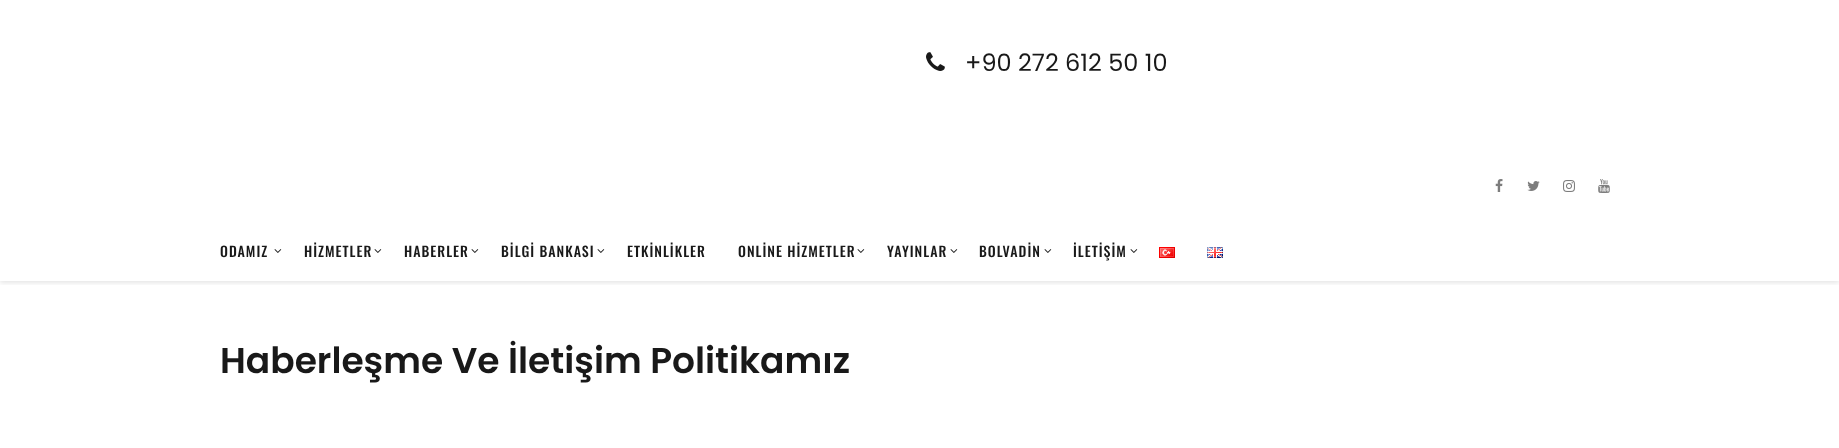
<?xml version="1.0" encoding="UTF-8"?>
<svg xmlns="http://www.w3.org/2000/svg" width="1839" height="448">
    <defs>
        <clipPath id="clip1"><rect x="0" y="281" width="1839" height="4"/></clipPath>
        <filter id="blur1" x="-50%" y="-200%" width="200%" height="500%"><feGaussianBlur stdDeviation="2.5"/></filter>
    </defs>
    <rect width="100%" height="100%" fill="#FFFFFF"/>
    <g clip-path="url(#clip1)">
        <rect x="0" y="2" width="1839" height="281" fill="#000000" fill-opacity="0.1" filter="url(#blur1)"/>
    </g>
    <image x="926" y="52" width="19" height="19" href="img_01.png"/>
    <text x="965" y="71" font-family="Poppins" font-size="24" fill="#191919">+90 272 612 50 10</text>
    <image x="1495" y="179" width="8" height="13" href="img_02.png"/>
    <image x="1527" y="181" width="13" height="10" href="img_03.png"/>
    <image x="1563" y="180" width="12" height="12" href="img_04.png"/>
    <image x="1598" y="179" width="12" height="14" href="img_05.png"/>
    <text x="220" y="257" font-family="Oswald" font-size="14" font-weight="500" letter-spacing="1" fill="#191919">ODAMIZ</text>
    <image x="274" y="249" width="8" height="4" href="img_06.png"/>
    <text x="304" y="257" font-family="Oswald" font-size="14" font-weight="500" letter-spacing="1" fill="#191919">HİZMETLER</text>
    <image x="374" y="249" width="8" height="4" href="img_06.png"/>
    <text x="404" y="257" font-family="Oswald" font-size="14" font-weight="500" letter-spacing="1" fill="#191919">HABERLER</text>
    <image x="471" y="249" width="8" height="4" href="img_06.png"/>
    <text x="501" y="257" font-family="Oswald" font-size="14" font-weight="500" letter-spacing="1" fill="#191919">BİLGİ BANKASI</text>
    <image x="597" y="249" width="8" height="4" href="img_06.png"/>
    <text x="627" y="257" font-family="Oswald" font-size="14" font-weight="500" letter-spacing="1" fill="#191919">ETKİNLİKLER</text>
    <text x="738" y="257" font-family="Oswald" font-size="14" font-weight="500" letter-spacing="1" fill="#191919">ONLİNE HİZMETLER</text>
    <image x="857" y="249" width="8" height="4" href="img_06.png"/>
    <text x="887" y="257" font-family="Oswald" font-size="14" font-weight="500" letter-spacing="1" fill="#191919">YAYINLAR</text>
    <image x="950" y="249" width="8" height="4" href="img_06.png"/>
    <text x="979" y="257" font-family="Oswald" font-size="14" font-weight="500" letter-spacing="1" fill="#191919">BOLVADİN</text>
    <image x="1044" y="249" width="8" height="4" href="img_06.png"/>
    <text x="1073" y="257" font-family="Oswald" font-size="14" font-weight="500" letter-spacing="1" fill="#191919">İLETİŞİM</text>
    <image x="1130" y="249" width="8" height="4" href="img_06.png"/>
    <image x="1159" y="247" width="16" height="11" href="img_07.png"/>
    <image x="1207" y="247" width="16" height="11" href="img_08.png"/>
    <text x="220" y="373" font-family="Poppins" font-size="36" font-weight="600" fill="#191919">Haberleşme Ve İletişim Politikamız</text>
</svg>
